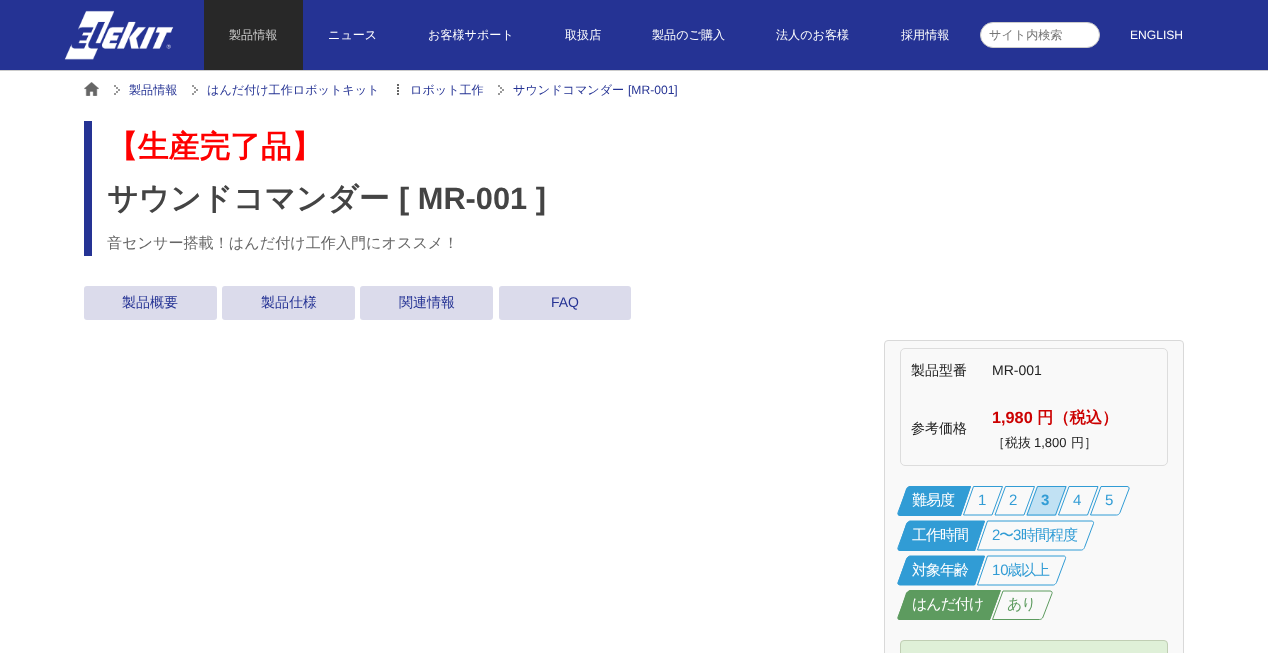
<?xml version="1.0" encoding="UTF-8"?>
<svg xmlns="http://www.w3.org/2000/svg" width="1268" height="653">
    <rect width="100%" height="100%" fill="#FFFFFF"/>
    <rect x="0" y="0" width="1268" height="70" fill="#253394"/>
    <rect x="0" y="70" width="1268" height="1" fill="#CCCCCC"/>
    <image x="64" y="10" width="110" height="50" href="img_01.png"/>
    <rect x="204" y="0" width="99" height="70" fill="#282828"/>
    <text x="229" y="39" font-family="WenQuanYi Zen Hei" font-size="12.1" font-weight="500" fill="#CCCCCC">製品情報</text>
    <text x="328" y="39" font-family="WenQuanYi Zen Hei" font-size="12.1" font-weight="500" fill="#FFFFFF">ニュース</text>
    <text x="428" y="39" font-family="WenQuanYi Zen Hei" font-size="12.1" font-weight="500" fill="#FFFFFF">お客様サポート</text>
    <text x="565" y="39" font-family="WenQuanYi Zen Hei" font-size="12.1" font-weight="500" fill="#FFFFFF">取扱店</text>
    <text x="652" y="39" font-family="WenQuanYi Zen Hei" font-size="12.1" font-weight="500" fill="#FFFFFF">製品のご購入</text>
    <text x="776" y="39" font-family="WenQuanYi Zen Hei" font-size="12.1" font-weight="500" fill="#FFFFFF">法人のお客様</text>
    <text x="901" y="39" font-family="WenQuanYi Zen Hei" font-size="12.1" font-weight="500" fill="#FFFFFF">採用情報</text>
    <rect x="980.5" y="22.5" width="119" height="25" rx="12.5" fill="#FFFFFF" stroke="#CCCCCC"/>
    <text x="989" y="39" font-family="WenQuanYi Zen Hei" font-size="12.1" font-weight="500" fill="#757575">サイト内検索</text>
    <text x="1130" y="39" font-family="Liberation Sans" font-size="12.1" fill="#FFFFFF">ENGLISH</text>
    <image x="84" y="82" width="15" height="14" href="img_02.png"/>
    <image x="114" y="85" width="6" height="10" href="img_03.png"/>
    <text x="129" y="94" font-family="WenQuanYi Zen Hei" font-size="12.1" font-weight="500" fill="#253394">製品情報</text>
    <image x="192" y="85" width="6" height="10" href="img_03.png"/>
    <text x="207" y="94" font-family="WenQuanYi Zen Hei" font-size="12.1" font-weight="500" fill="#253394">はんだ付け工作ロボットキット</text>
    <image x="397" y="84" width="2" height="11" href="img_04.png"/>
    <text x="410" y="94" font-family="WenQuanYi Zen Hei" font-size="12.1" font-weight="500" fill="#253394">ロボット工作</text>
    <image x="498" y="85" width="6" height="10" href="img_03.png"/>
    <text x="513" y="94" font-family="WenQuanYi Zen Hei" font-size="12.1" font-weight="500" fill="#253394">サウンドコマンダー</text>
    <text x="628" y="94" font-family="Liberation Sans" font-size="12.1" fill="#253394">[MR-001]</text>
    <rect x="84" y="121" width="8" height="135" fill="#253394"/>
    <text x="107" y="157" font-family="WenQuanYi Zen Hei" font-size="30.75" font-weight="700" fill="#FF0000">【生産完了品】</text>
    <text x="107" y="209" font-family="WenQuanYi Zen Hei" font-size="30.75" font-weight="700" fill="#444444">サウンドコマンダー</text>
    <text x="399" y="209" font-family="Liberation Sans" font-size="30.75" font-weight="700" fill="#444444">[ MR-001 ]</text>
    <text x="107" y="248" font-family="WenQuanYi Zen Hei" font-size="15.1" font-weight="500" fill="#666666">音センサー搭載！はんだ付け工作入門にオススメ！</text>
    <rect x="84" y="286" width="133" height="34" rx="3" fill="#DBDBEB"/>
    <text x="122" y="307" font-family="WenQuanYi Zen Hei" font-size="14" font-weight="500" fill="#253394">製品概要</text>
    <rect x="222" y="286" width="133" height="34" rx="3" fill="#DBDBEB"/>
    <text x="261" y="307" font-family="WenQuanYi Zen Hei" font-size="14" font-weight="500" fill="#253394">製品仕様</text>
    <rect x="360" y="286" width="133" height="34" rx="3" fill="#DBDBEB"/>
    <text x="399" y="307" font-family="WenQuanYi Zen Hei" font-size="14" font-weight="500" fill="#253394">関連情報</text>
    <rect x="499" y="286" width="132" height="34" rx="3" fill="#DBDBEB"/>
    <text x="551" y="307" font-family="Liberation Sans" font-size="14" fill="#253394">FAQ</text>
    <rect x="884.5" y="340.5" width="299" height="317" rx="3.5" fill="#F9F9F9" stroke="#D9D9D9"/>
    <rect x="900.5" y="348.5" width="267" height="117" rx="4.5" fill="none" stroke="#DDDDDD"/>
    <text x="911" y="375" font-family="WenQuanYi Zen Hei" font-size="14" font-weight="500" fill="#222222">製品型番</text>
    <text x="992" y="375" font-family="Liberation Sans" font-size="14" fill="#222222">MR-001</text>
    <text x="911" y="433" font-family="WenQuanYi Zen Hei" font-size="14" font-weight="500" fill="#222222">参考価格</text>
    <text x="992" y="423" font-family="Liberation Sans" font-size="16.25" font-weight="700" fill="#CC0000">1,980</text>
    <text x="1037" y="423" font-family="WenQuanYi Zen Hei" font-size="16.25" font-weight="700" fill="#CC0000">円（税込）</text>
    <text x="992" y="447" font-family="WenQuanYi Zen Hei" font-size="13" font-weight="500" fill="#222222">［税抜</text>
    <text x="1034" y="447" font-family="Liberation Sans" font-size="13" fill="#222222">1,800</text>
    <text x="1071" y="447" font-family="WenQuanYi Zen Hei" font-size="13" font-weight="500" fill="#222222">円］</text>
    <path d="M 910 486 H 971 L 961 516 H 900 C 898 516 897 514 898 513 L 906 489 C 907 487 909 486 910 486 Z" fill="#319CD5"/>
    <path d="M 910 486.5 H 970.5 L 960.5 515 H 900 C 898.5 515 897.5 514 898 512.5 L 907 489 C 907.5 487.5 909 486.5 910 486.5 Z" fill="none" stroke="#319CD5"/>
    <text x="912" y="505" font-family="WenQuanYi Zen Hei" font-size="15" font-weight="500" letter-spacing="-1" fill="#FFFFFF">難易度</text>
    <path d="M 973.5 486.5 H 1002.5 L 992 515 H 963.5 Z" fill="none" stroke="#319CD5"/>
    <text x="978" y="505" font-family="Liberation Sans" font-size="15" fill="#319CD5">1</text>
    <path d="M 1005.5 486.5 H 1034.5 L 1024 515 H 995 Z" fill="none" stroke="#319CD5"/>
    <text x="1009" y="505" font-family="Liberation Sans" font-size="15" fill="#319CD5">2</text>
    <path d="M 1037 486 H 1067 L 1056 516 H 1026 Z" fill="#C1E1F3"/>
    <path d="M 1037.5 486.5 H 1066 L 1055.5 515 H 1027 Z" fill="none" stroke="#319CD5"/>
    <text x="1041" y="505" font-family="Liberation Sans" font-size="15" font-weight="700" fill="#319CD5">3</text>
    <path d="M 1069 486.5 H 1098 L 1087.5 515 H 1058.5 Z" fill="none" stroke="#319CD5"/>
    <text x="1073" y="505" font-family="Liberation Sans" font-size="15" fill="#319CD5">4</text>
    <path d="M 1101 486.5 H 1127 C 1128.5 486.5 1129.5 487.5 1129 489 L 1120 512.5 C 1119.5 514 1118 515 1116.5 515 H 1090.5 Z" fill="none" stroke="#319CD5"/>
    <text x="1105" y="505" font-family="Liberation Sans" font-size="15" fill="#319CD5">5</text>
    <path d="M 910 521 H 985 L 975 551 H 900 C 898 551 897 549 898 548 L 906 524 C 907 522 909 521 910 521 Z" fill="#319CD5"/>
    <path d="M 910 521 H 984.5 L 974.5 550 H 900 C 898.5 550 897.5 549 898 547.5 L 907 523.5 C 907.5 522.5 909 521 910 521 Z" fill="none" stroke="#319CD5"/>
    <text x="912" y="540" font-family="WenQuanYi Zen Hei" font-size="15" font-weight="500" letter-spacing="-1" fill="#FFFFFF">工作時間</text>
    <path d="M 987.5 521 H 1092 C 1093 521 1094 522.5 1093.5 523.5 L 1084.5 547.5 C 1084 549 1082.5 550 1081.5 550 H 977.5 Z" fill="none" stroke="#319CD5"/>
    <text x="992" y="540" font-family="Liberation Sans" font-size="15" fill="#319CD5">2</text>
    <text x="999" y="540" font-family="WenQuanYi Zen Hei" font-size="15" font-weight="500" letter-spacing="-1" fill="#319CD5">〜</text>
    <text x="1013" y="540" font-family="Liberation Sans" font-size="15" fill="#319CD5">3</text>
    <text x="1021" y="540" font-family="WenQuanYi Zen Hei" font-size="15" font-weight="500" letter-spacing="-1" fill="#319CD5">時間程度</text>
    <path d="M 910 556 H 985 L 975 585 H 900 C 898 585 897 584 898 582 L 906 559 C 907 557 909 556 910 556 Z" fill="#319CD5"/>
    <path d="M 910 556 H 984.5 L 974.5 585 H 900 C 898.5 585 897.5 583.5 898 582.5 L 907 558.5 C 907.5 557 909 556 910 556 Z" fill="none" stroke="#319CD5"/>
    <text x="912" y="575" font-family="WenQuanYi Zen Hei" font-size="15" font-weight="500" letter-spacing="-1" fill="#FFFFFF">対象年齢</text>
    <path d="M 987.5 556 H 1064 C 1065 556 1066 557 1065.5 558.5 L 1056.5 582.5 C 1056 583.5 1054.5 585 1053.5 585 H 977.5 Z" fill="none" stroke="#319CD5"/>
    <text x="992" y="575" font-family="Liberation Sans" font-size="15" fill="#319CD5">10</text>
    <text x="1007" y="575" font-family="WenQuanYi Zen Hei" font-size="15" font-weight="500" letter-spacing="-1" fill="#319CD5">歳以上</text>
    <path d="M 910 590 H 1001 L 990 620 H 900 C 898 620 897 619 898 617 L 906 593 C 907 592 909 590 910 590 Z" fill="#5D9B5F"/>
    <path d="M 910 591 H 1000 L 989.5 619.5 H 900 C 898.5 619.5 897.5 618.5 898 617 L 907 593.5 C 907.5 592 909 591 910 591 Z" fill="none" stroke="#5D9B5F"/>
    <text x="912" y="609" font-family="WenQuanYi Zen Hei" font-size="15" font-weight="500" letter-spacing="-1" fill="#FFFFFF">はんだ付け</text>
    <path d="M 1003 591 H 1050 C 1051.5 591 1052.5 592 1052 593.5 L 1043 617 C 1042.5 618.5 1041 619.5 1039.5 619.5 H 992.5 Z" fill="none" stroke="#5D9B5F"/>
    <text x="1007" y="609" font-family="WenQuanYi Zen Hei" font-size="15" font-weight="500" letter-spacing="-1" fill="#5D9B5F">あり</text>
    <rect x="900.5" y="640.5" width="267" height="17" rx="3.5" fill="#DFF0D8" stroke="#C0CEB4"/>
</svg>
